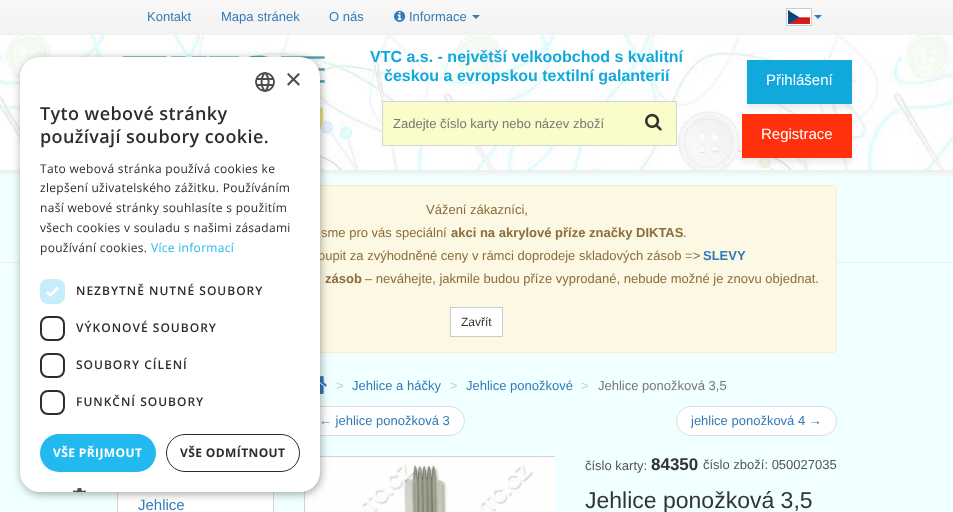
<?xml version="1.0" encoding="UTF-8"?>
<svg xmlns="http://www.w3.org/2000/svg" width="953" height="512">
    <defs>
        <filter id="blur1" x="-50%" y="-200%" width="200%" height="500%"><feGaussianBlur stdDeviation="2.5"/></filter>
        <filter id="blur2" x="-50%" y="-200%" width="200%" height="500%"><feGaussianBlur stdDeviation="4"/></filter>
    </defs>
    <rect width="100%" height="100%" fill="#F0FFFF"/>
    <image x="0" y="0" width="953" height="170" href="img_01.png"/>
    <text x="147" y="21" font-family="Liberation Sans" font-size="13" fill="#337AB7">Kontakt</text>
    <text x="221" y="21" font-family="Liberation Sans" font-size="13" fill="#337AB7">Mapa stránek</text>
    <text x="329" y="21" font-family="Liberation Sans" font-size="13" fill="#337AB7">O nás</text>
    <image x="394" y="10" width="12" height="12" href="img_02.png"/>
    <text x="409" y="21" font-family="Liberation Sans" font-size="13" fill="#337AB7">Informace</text>
    <path d="M 472 15 H 480 L 476 19 Z" fill="#337AB7"/>
    <image x="786" y="8" width="26" height="18" href="img_03.png"/>
    <path d="M 814 15 H 822 L 818 19 Z" fill="#337AB7"/>
    <image x="122" y="55" width="203" height="75" href="img_04.png"/>
    <text x="370" y="62" font-family="Liberation Sans" font-size="16" font-weight="700" fill="#11A9DC">VTC a.s. - největší velkoobchod s kvalitní</text>
    <text x="384" y="81" font-family="Liberation Sans" font-size="16" font-weight="700" fill="#11A9DC">českou a evropskou textilní galanterií</text>
    <rect x="747" y="65" width="105" height="44" fill="#000000" fill-opacity="0.07" filter="url(#blur1)"/>
    <rect x="747" y="60" width="105" height="44" fill="#11A9DC"/>
    <text x="766" y="85" font-family="Liberation Sans" font-size="15" fill="#FFFFFF">Přihlášení</text>
    <image x="0" y="170" width="953" height="93" href="img_08.png"/>
    <rect x="742" y="119" width="110" height="44" fill="#000000" fill-opacity="0.07" filter="url(#blur1)"/>
    <rect x="742" y="114" width="110" height="44" fill="#FF300B"/>
    <text x="761" y="139" font-family="Liberation Sans" font-size="15" fill="#FFFFFF">Registrace</text>
    <rect x="383" y="102" width="293" height="43" fill="#FAFCC9"/>
    <rect x="382" y="101" width="295" height="1" fill="#D4D4D4"/>
    <rect x="676" y="101" width="1" height="45" fill="#D4D4D4"/>
    <rect x="382" y="145" width="295" height="1" fill="#D4D4D4"/>
    <image x="645" y="113" width="17" height="18" href="img_05.png"/>
    <rect x="382" y="101" width="1" height="45" fill="#D4D4D4"/>
    <text x="393" y="128" font-family="Liberation Sans" font-size="13" fill="#777777">Zadejte číslo karty nebo název zboží</text>
    <rect x="117.5" y="185.5" width="719" height="167" rx="3.5" fill="#FCF8E3" stroke="#FAEBCC"/>
    <rect x="118" y="492" width="155" height="20" fill="#FFFFFF"/>
    <rect x="117.5" y="429.5" width="156" height="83" fill="none" stroke="#D4D4D4"/>
    <image x="320" y="376" width="7" height="18" href="img_09.png"/>
    <rect x="304.5" y="406.5" width="160" height="29" rx="14.5" fill="#FFFFFF" stroke="#DDDDDD"/>
    <rect x="304.5" y="456.5" width="250" height="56" fill="none" stroke="#D4D4D4"/>
    <image x="306" y="457" width="249" height="55" href="img_10.png"/>
    <rect x="21" y="59" width="300" height="435" rx="20" fill="#000000" fill-opacity="0.35" filter="url(#blur2)"/>
    <text x="318" y="260" font-family="Liberation Sans" font-size="13" fill="#8A6D3B">oupit za zvýhodněné ceny v rámci doprodeje skladových zásob =&gt;</text>
    <rect x="20" y="57" width="300" height="435" rx="20" fill="#FFFFFF"/>
    <image x="255" y="72" width="20" height="20" href="img_06.png"/>
    <text x="285" y="89" font-family="Liberation Sans" font-size="29" fill="#4D4D4D">×</text>
    <text font-family="Open Sans" font-size="18" font-weight="600" letter-spacing="0.4" fill="#2D2D2D">
        <tspan x="40" y="120">Tyto webové stránky</tspan>
        <tspan x="40" y="143">používají soubory cookie.</tspan>
    </text>
    <text font-family="Open Sans" font-size="12" letter-spacing="0.3" fill="#2D2D2D">
        <tspan x="40" y="173">Tato webová stránka používá cookies ke</tspan>
        <tspan x="40" y="192">zlepšení uživatelského zážitku. Používáním</tspan>
        <tspan x="40" y="212">naší webové stránky souhlasíte s použitím</tspan>
        <tspan x="40" y="232">všech cookies v souladu s našimi zásadami</tspan>
        <tspan x="40" y="252">používání cookies.</tspan>
    </text>
    <text x="151" y="252" font-family="Open Sans" font-size="12" letter-spacing="0.3" fill="#22B8F0">Více informací</text>
    <rect x="40" y="279" width="25" height="25" rx="8" fill="#C6EDFB"/>
    <path d="M 47 292 L 50.5 295.5 L 58 287.5" fill="none" stroke="#FFFFFF" stroke-width="2.6"/>
    <text x="76" y="295" font-family="Open Sans" font-size="12" font-weight="600" letter-spacing="1" fill="#2D2D2D">NEZBYTNĚ NUTNÉ SOUBORY</text>
    <rect x="41" y="317" width="23" height="23" rx="7" fill="none" stroke="#2D2D2D" stroke-width="2"/>
    <text x="76" y="332" font-family="Open Sans" font-size="12" font-weight="600" letter-spacing="1" fill="#2D2D2D">VÝKONOVÉ SOUBORY</text>
    <rect x="41" y="354" width="23" height="23" rx="7" fill="none" stroke="#2D2D2D" stroke-width="2"/>
    <text x="76" y="369" font-family="Open Sans" font-size="12" font-weight="600" letter-spacing="1" fill="#2D2D2D">SOUBORY CÍLENÍ</text>
    <rect x="41" y="391" width="23" height="23" rx="7" fill="none" stroke="#2D2D2D" stroke-width="2"/>
    <text x="76" y="406" font-family="Open Sans" font-size="12" font-weight="600" letter-spacing="1" fill="#2D2D2D">FUNKČNÍ SOUBORY</text>
    <rect x="40" y="434" width="116" height="38" rx="19" fill="#22B8F0"/>
    <text x="53" y="457" font-family="Open Sans" font-size="12" font-weight="700" letter-spacing="0.4" fill="#FFFFFF">VŠE PŘIJMOUT</text>
    <rect x="166.5" y="434.5" width="133" height="37" rx="18.5" fill="none" stroke="#2D2D2D"/>
    <text x="180" y="457" font-family="Open Sans" font-size="12" font-weight="700" letter-spacing="0.4" fill="#2D2D2D">VŠE ODMÍTNOUT</text>
    <image x="72" y="488" width="14" height="4" href="img_07.png"/>
    <text x="426" y="214" font-family="Liberation Sans" font-size="13" fill="#8A6D3B">Vážení zákazníci,</text>
    <text x="321" y="237" font-family="Liberation Sans" font-size="13" fill="#8A6D3B">sme pro vás speciální</text>
    <text x="451" y="237" font-family="Liberation Sans" font-size="13" font-weight="700" fill="#8A6D3B">akci na akrylové příze značky DIKTAS</text>
    <text x="683" y="237" font-family="Liberation Sans" font-size="13" fill="#8A6D3B">.</text>
    <text x="703" y="260" font-family="Liberation Sans" font-size="13" font-weight="700" fill="#337AB7">SLEVY</text>
    <text x="325" y="283" font-family="Liberation Sans" font-size="13" font-weight="700" fill="#8A6D3B">zásob</text>
    <text x="365" y="283" font-family="Liberation Sans" font-size="13" fill="#8A6D3B">– neváhejte, jakmile budou příze vyprodané, nebude možné je znovu objednat.</text>
    <rect x="450.5" y="307.5" width="52" height="29" fill="#FFFFFF" stroke="#CCCCCC"/>
    <text x="461" y="326" font-family="Liberation Sans" font-size="12" fill="#333333">Zavřít</text>
    <text x="138" y="510" font-family="Liberation Sans" font-size="15" fill="#337AB7">Jehlice</text>
    <text x="336" y="390" font-family="Liberation Sans" font-size="13" fill="#CCCCCC">&gt;</text>
    <text x="352" y="390" font-family="Liberation Sans" font-size="13" fill="#337AB7">Jehlice a háčky</text>
    <text x="450" y="390" font-family="Liberation Sans" font-size="13" fill="#CCCCCC">&gt;</text>
    <text x="466" y="390" font-family="Liberation Sans" font-size="13" fill="#337AB7">Jehlice ponožkové</text>
    <text x="581" y="390" font-family="Liberation Sans" font-size="13" fill="#CCCCCC">&gt;</text>
    <text x="598" y="390" font-family="Liberation Sans" font-size="13" fill="#777777">Jehlice ponožková 3,5</text>
    <text x="319" y="425" font-family="Liberation Sans" font-size="13" fill="#337AB7">← jehlice ponožková 3</text>
    <rect x="676.5" y="406.5" width="160" height="29" rx="14.5" fill="#FFFFFF" stroke="#DDDDDD"/>
    <text x="691" y="425" font-family="Liberation Sans" font-size="13" fill="#337AB7">jehlice ponožková 4 →</text>
    <text x="585" y="470" font-family="Liberation Sans" font-size="13" fill="#555555">číslo karty:</text>
    <text x="651" y="470" font-family="Liberation Sans" font-size="17" font-weight="700" fill="#333333">84350</text>
    <text x="703" y="469" font-family="Liberation Sans" font-size="13" fill="#555555">číslo zboží: 050027035</text>
    <text x="585" y="508" font-family="Liberation Sans" font-size="23" fill="#333333">Jehlice ponožková 3,5</text>
</svg>
